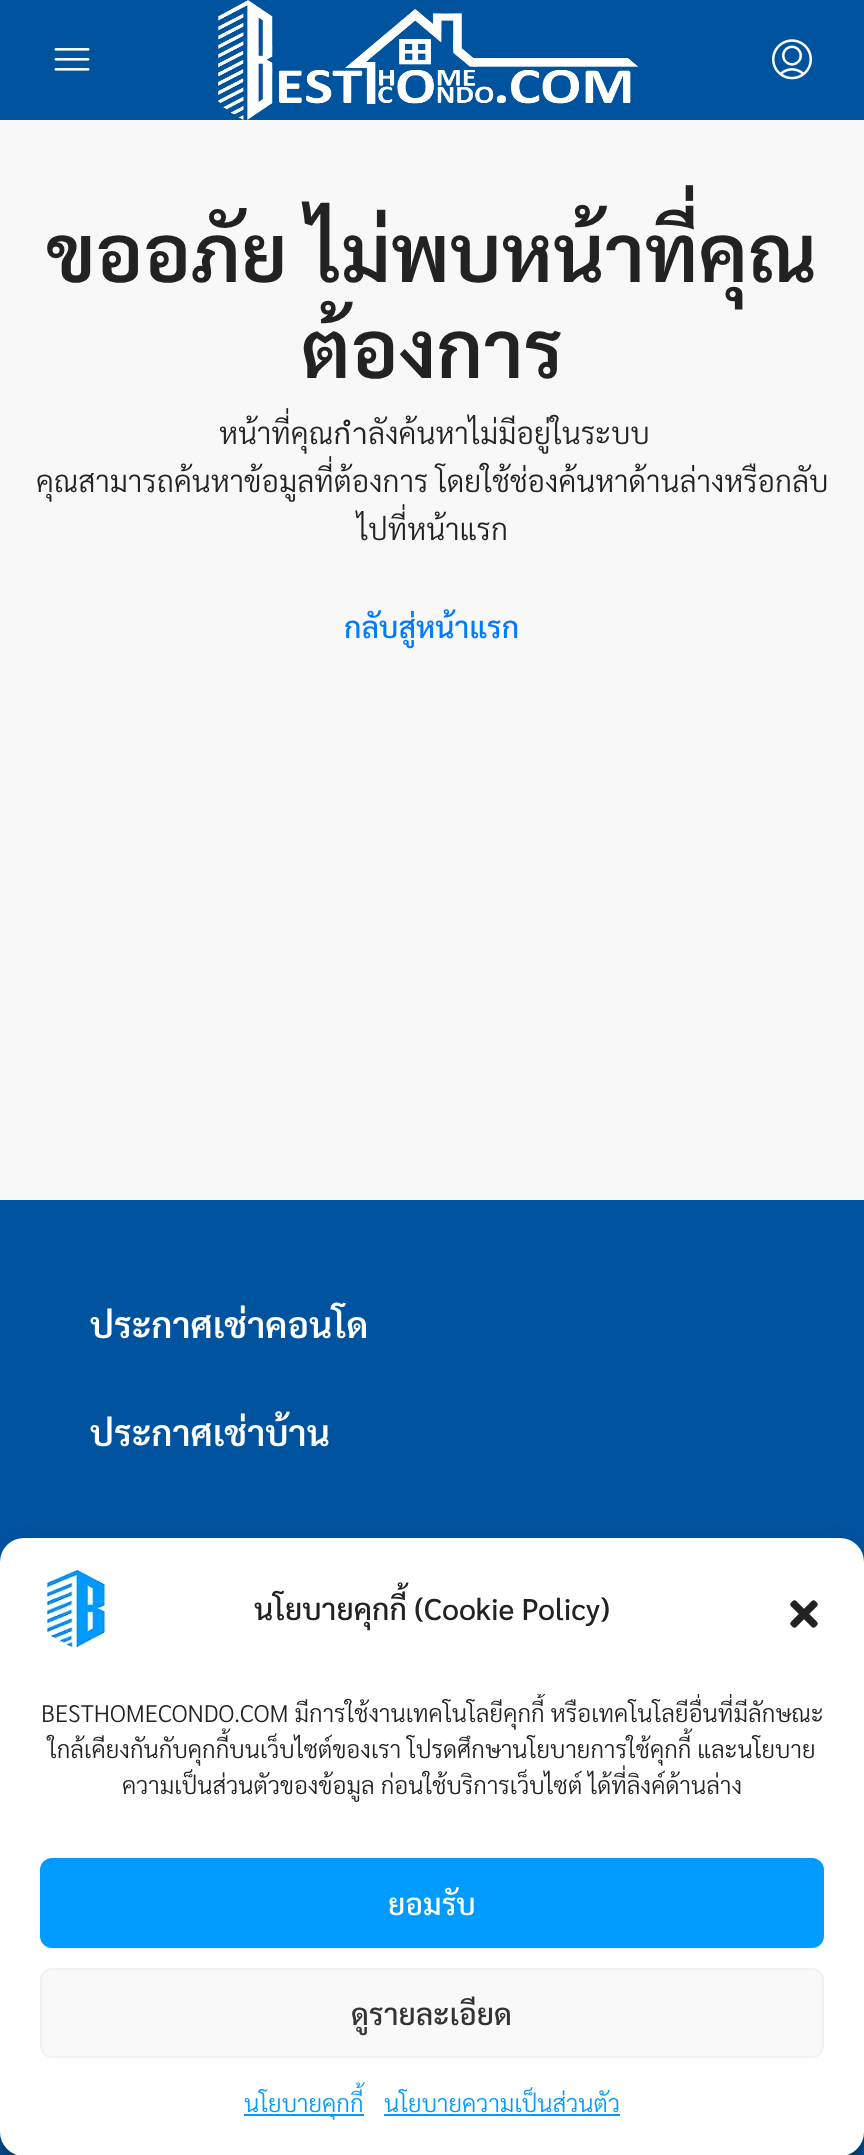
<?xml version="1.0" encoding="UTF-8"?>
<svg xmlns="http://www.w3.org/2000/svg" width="864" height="2155">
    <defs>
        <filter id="blur1" x="-50%" y="-200%" width="200%" height="500%"><feGaussianBlur stdDeviation="6"/></filter>
        <filter id="blur2" x="-50%" y="-200%" width="200%" height="500%"><feGaussianBlur stdDeviation="20"/></filter>
        <clipPath id="clip1"><rect x="40" y="1694" width="784" height="118"/></clipPath>
    </defs>
    <rect width="100%" height="100%" fill="#F8F8F8"/>
    <rect x="0" y="0" width="864" height="120" fill="#00539F"/>
    <image x="54" y="48" width="36" height="23" href="img_01.png"/>
    <image x="218" y="0" width="420" height="120" href="img_02.png"/>
    <image x="772" y="39" width="40" height="41" href="img_03.png"/>
    <text x="46" y="282" font-family="Sarabun" font-size="80" font-weight="600" fill="#222222">ขออภัย ไม่พบหน้าที่คุณ</text>
    <text x="301" y="378" font-family="Sarabun" font-size="80" font-weight="600" fill="#222222">ต้องการ</text>
    <text x="219" y="444" font-family="Sarabun" font-size="30" font-weight="300" fill="#222222">หน้าที่คุณกำลังค้นหาไม่มีอยู่ในระบบ</text>
    <text x="36" y="492" font-family="Sarabun" font-size="30" font-weight="300" fill="#222222">คุณสามารถค้นหาข้อมูลที่ต้องการ โดยใช้ช่องค้นหาด้านล่างหรือกลับ</text>
    <text x="357" y="540" font-family="Sarabun" font-size="30" font-weight="300" fill="#222222">ไปที่หน้าแรก</text>
    <text x="344" y="638" font-family="Sarabun" font-size="30" font-weight="500" fill="#007BFF">กลับสู่หน้าแรก</text>
    <rect x="0" y="1200" width="864" height="955" fill="#00539F"/>
    <text x="90" y="1338" font-family="Sarabun" font-size="36" font-weight="600" fill="#FFFFFF">ประกาศเช่าคอนโด</text>
    <text x="90" y="1446" font-family="Sarabun" font-size="36" font-weight="600" fill="#FFFFFF">ประกาศเช่าบ้าน</text>
    <rect x="0" y="1550" width="864" height="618" rx="24" fill="#000000" fill-opacity="0.23" filter="url(#blur1)"/>
    <rect x="0" y="1558" width="864" height="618" rx="24" fill="#000000" fill-opacity="0.19" filter="url(#blur2)"/>
    <rect x="0" y="1538" width="864" height="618" rx="24" fill="#FFFFFF"/>
    <image x="40" y="1568" width="70" height="80" href="img_04.png"/>
    <text x="254" y="1620" font-family="Sarabun" font-size="30" font-weight="500" fill="#222222">นโยบายคุกกี้ (Cookie Policy)</text>
    <image x="790" y="1600" width="28" height="28" href="img_05.png"/>
    <g clip-path="url(#clip1)">
        <text x="41" y="1722" font-family="Sarabun" font-size="24" font-weight="300" fill="#222222">BESTHOMECONDO.COM มีการใช้งานเทคโนโลยีคุกกี้ หรือเทคโนโลยีอื่นที่มีลักษณะ</text>
    </g>
    <text x="48" y="1758" font-family="Sarabun" font-size="24" font-weight="300" fill="#222222">ใกล้เคียงกันกับคุกกี้บนเว็บไซต์ของเรา โปรดศึกษานโยบายการใช้คุกกี้ และนโยบาย</text>
    <text x="122" y="1794" font-family="Sarabun" font-size="24" font-weight="300" fill="#222222">ความเป็นส่วนตัวของข้อมูล ก่อนใช้บริการเว็บไซต์ ได้ที่ลิงค์ด้านล่าง</text>
    <rect x="41" y="1859" width="782" height="88" rx="11" fill="#009BFF" stroke="#009BFF" stroke-width="2"/>
    <text x="388" y="1915" font-family="Sarabun" font-size="30" font-weight="500" fill="#FFFFFF">ยอมรับ</text>
    <rect x="41" y="1969" width="782" height="88" rx="11" fill="#F9F9F9" stroke="#F2F2F2" stroke-width="2"/>
    <text x="351" y="2025" font-family="Sarabun" font-size="30" font-weight="500" fill="#333333">ดูรายละเอียด</text>
    <rect x="244" y="2114" width="120" height="2" fill="#009BFF"/>
    <text x="244" y="2112" font-family="Sarabun" font-size="24" font-weight="300" fill="#009BFF">นโยบายคุกกี้</text>
    <text x="384" y="2112" font-family="Sarabun" font-size="24" font-weight="300" fill="#009BFF">นโยบายความเป็นส่วนตัว</text>
    <rect x="384" y="2114" width="236" height="2" fill="#009BFF"/>
</svg>
